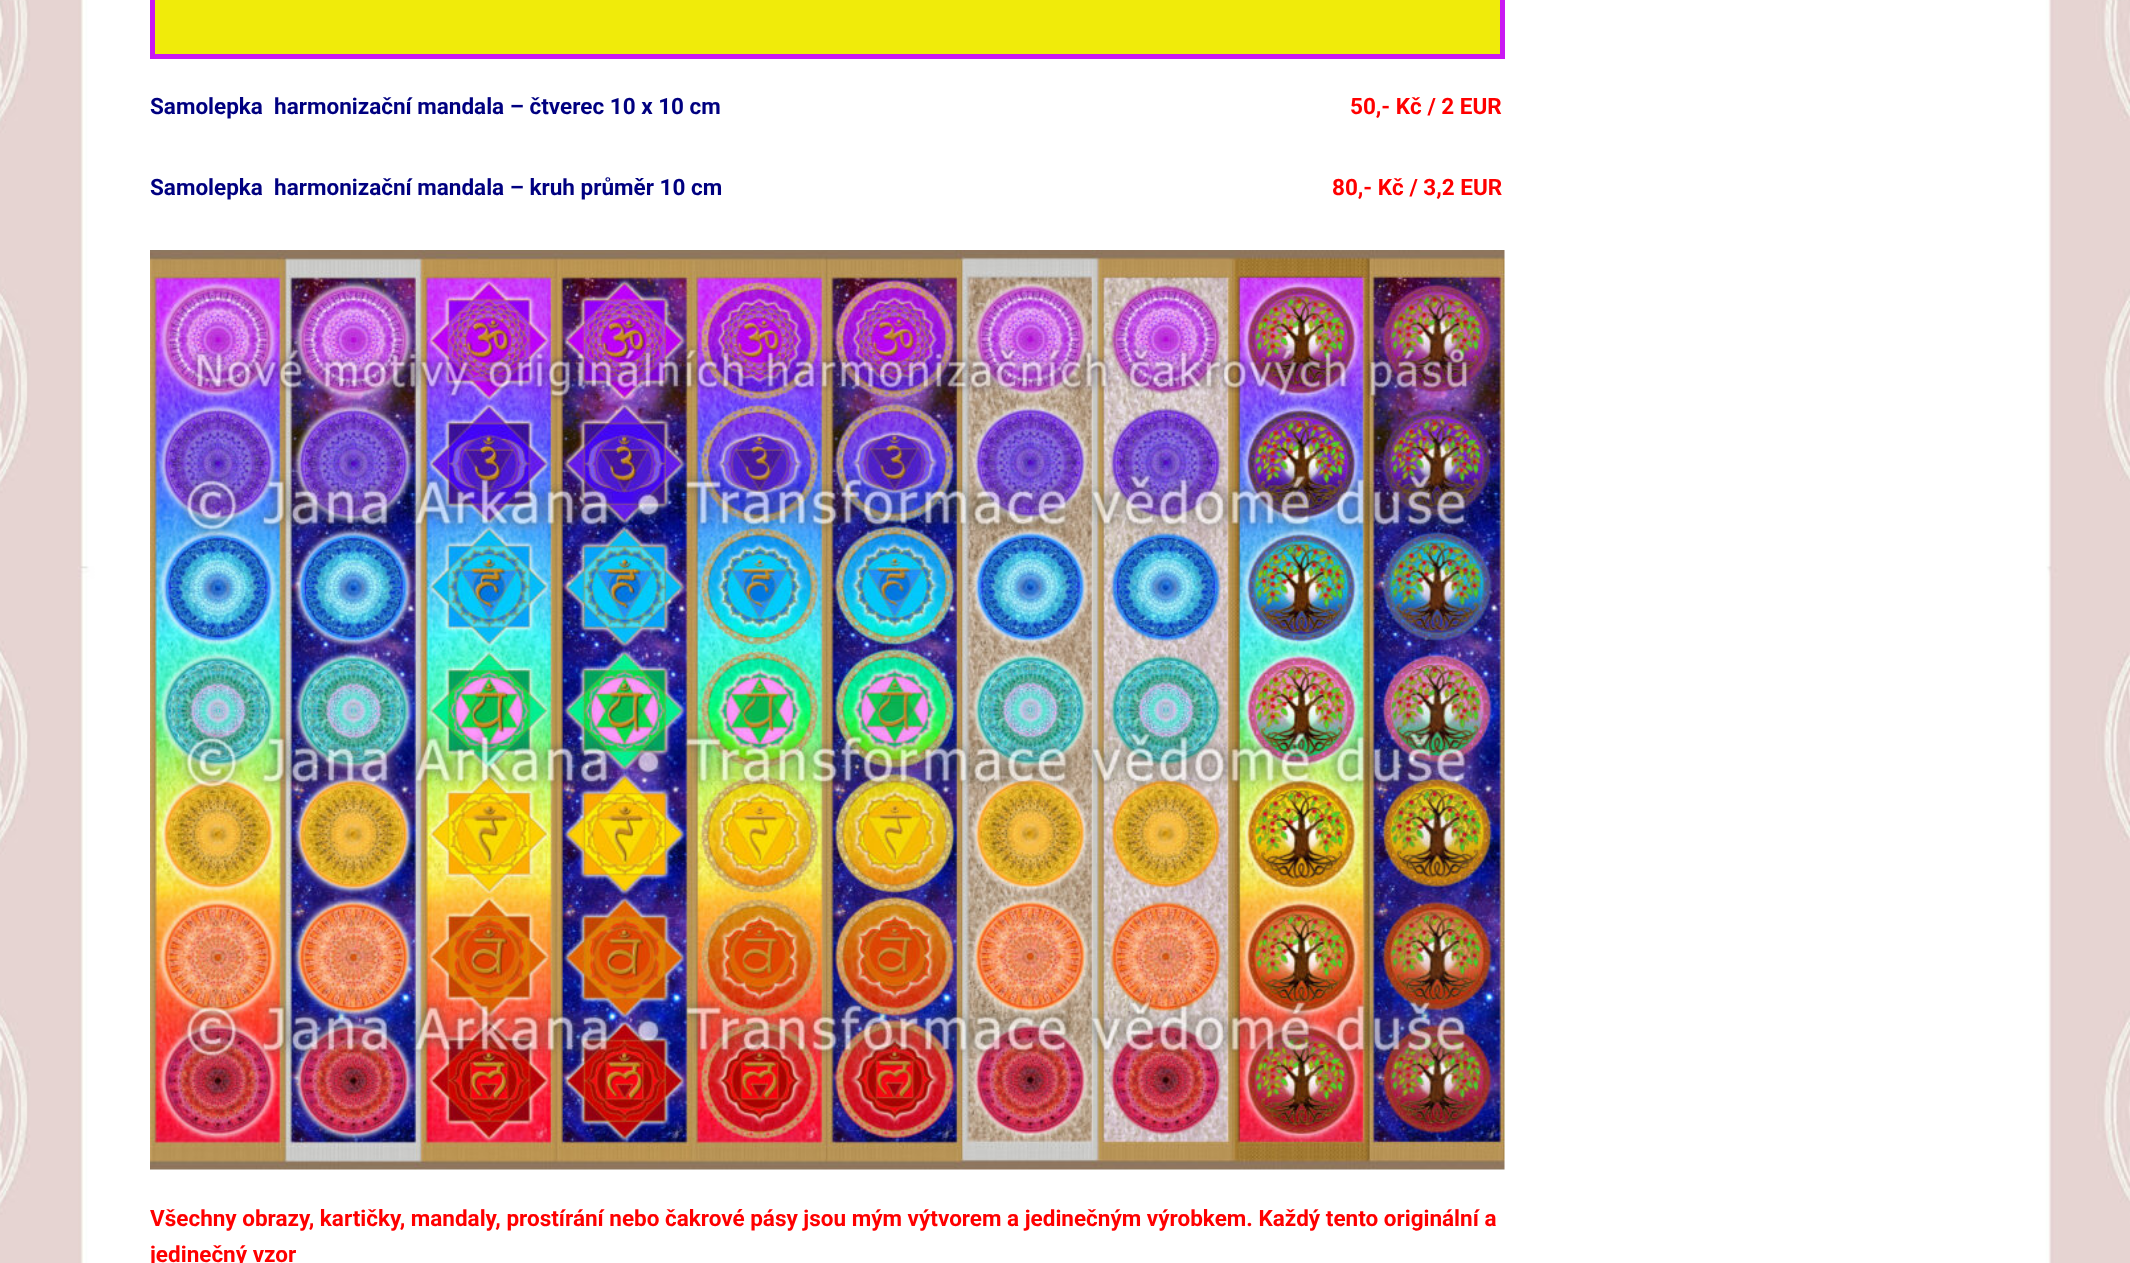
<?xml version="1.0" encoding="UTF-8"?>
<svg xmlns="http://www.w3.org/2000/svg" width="2130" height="1263">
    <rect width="100%" height="100%" fill="#FFFFFF"/>
    <image x="0" y="0" width="2130" height="1263" href="img_01.png"/>
    <rect x="152.5" y="-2.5" width="1350" height="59" fill="#F0EB0A" stroke="#CA18F3" stroke-width="5"/>
    <text x="150" y="114" font-family="Roboto" font-size="22.5" font-weight="700" fill="#000080" xml:space="preserve">Samolepka  harmonizační mandala – čtverec 10 x 10 cm</text>
    <text x="1350" y="114" font-family="Roboto" font-size="22.5" font-weight="700" fill="#FF0000">50,- Kč / 2 EUR</text>
    <text x="150" y="195" font-family="Roboto" font-size="22.5" font-weight="700" fill="#000080" xml:space="preserve">Samolepka  harmonizační mandala – kruh průměr 10 cm</text>
    <text x="1332" y="195" font-family="Roboto" font-size="22.5" font-weight="700" fill="#FF0000">80,- Kč / 3,2 EUR</text>
    <image x="150" y="250" width="1355" height="920" href="img_02.png"/>
    <text font-family="Roboto" font-size="22.5" font-weight="700" fill="#FF0000">
        <tspan x="150" y="1226">Všechny obrazy, kartičky, mandaly, prostírání nebo čakrové pásy jsou mým výtvorem a jedinečným výrobkem. Každý tento originální a</tspan>
        <tspan x="150" y="1262">jedinečný vzor</tspan>
    </text>
</svg>
